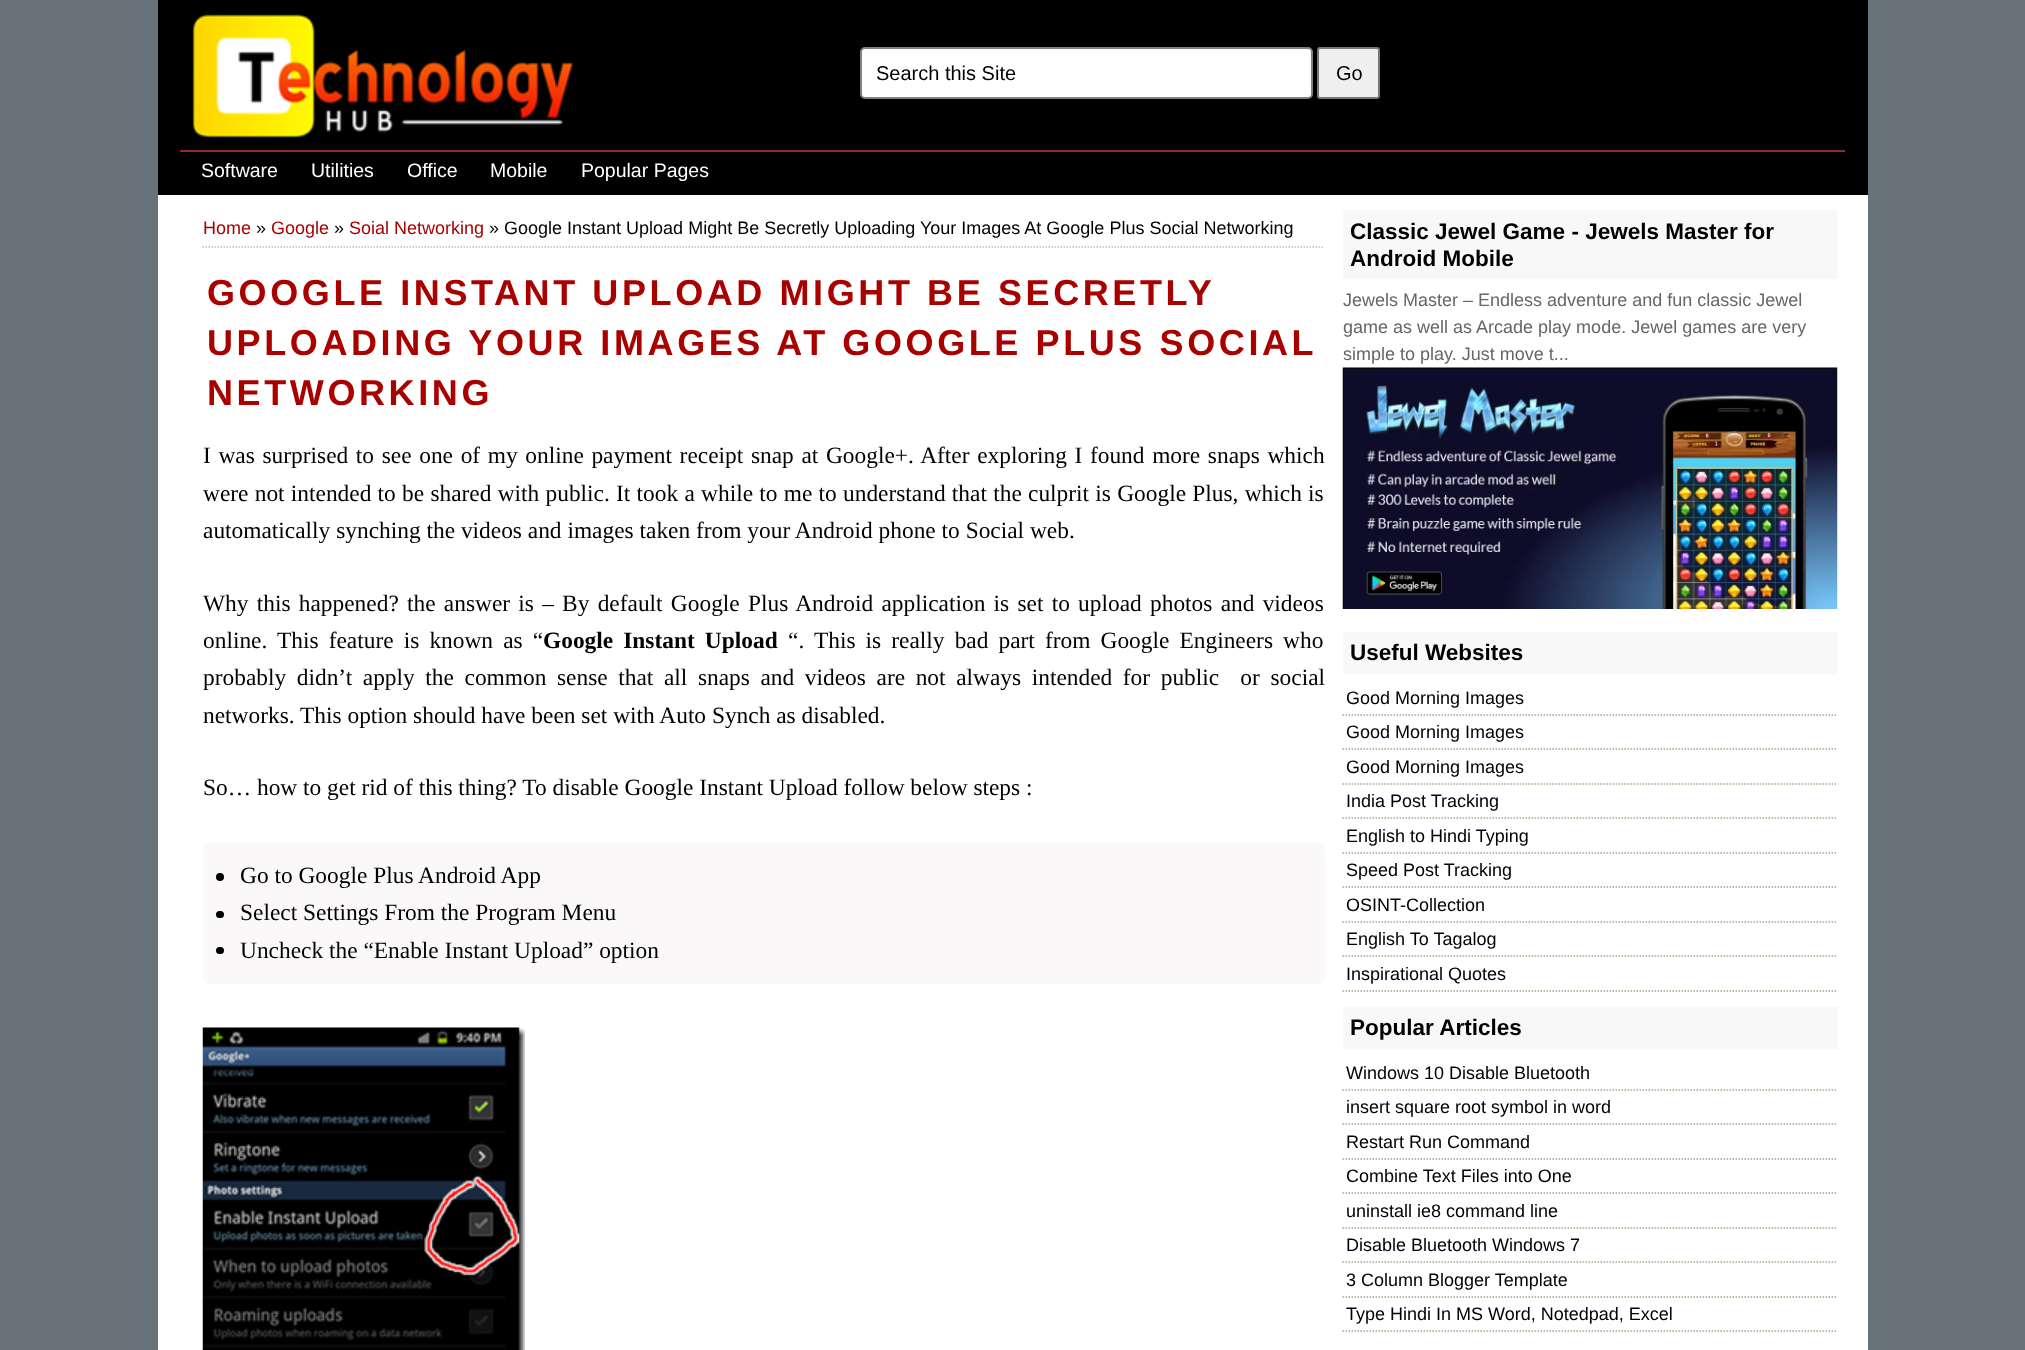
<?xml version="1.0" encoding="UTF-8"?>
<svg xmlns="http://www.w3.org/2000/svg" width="2025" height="1350">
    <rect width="100%" height="100%" fill="#67727B"/>
    <rect x="158" y="0" width="1710" height="195" fill="#000000"/>
    <image x="192" y="14" width="382" height="124" href="img_01.png"/>
    <rect x="861" y="48" width="451" height="50" rx="4" fill="#FFFFFF" stroke="#808080" stroke-width="2"/>
    <text x="876" y="80" font-family="Liberation Sans" font-size="20" fill="#000000">Search this Site</text>
    <rect x="1318" y="48" width="61" height="50" rx="2" fill="#EFEFEF" stroke="#767676" stroke-width="2"/>
    <text x="1336" y="80" font-family="Liberation Sans" font-size="20" fill="#000000">Go</text>
    <rect x="180" y="150" width="1665" height="2" fill="#922B2B"/>
    <text x="201" y="177" font-family="Liberation Sans" font-size="19.5" fill="#FFFFFF">Software</text>
    <text x="311" y="177" font-family="Liberation Sans" font-size="19.5" fill="#FFFFFF">Utilities</text>
    <text x="407" y="177" font-family="Liberation Sans" font-size="19.5" fill="#FFFFFF">Office</text>
    <text x="490" y="177" font-family="Liberation Sans" font-size="19.5" fill="#FFFFFF">Mobile</text>
    <text x="581" y="177" font-family="Liberation Sans" font-size="19.5" fill="#FFFFFF">Popular Pages</text>
    <rect x="158" y="195" width="1710" height="1155" fill="#FFFFFF"/>
    <path d="M 202.5 247 H 1324.5" fill="none" stroke="#C4BCBC" stroke-width="1.5" stroke-dasharray="1.5 1.5"/>
    <text x="203" y="234" font-family="Liberation Sans" font-size="18" fill="#A90000">Home</text>
    <text x="256" y="234" font-family="Liberation Sans" font-size="18" fill="#000000">»</text>
    <text x="271" y="234" font-family="Liberation Sans" font-size="18" fill="#A90000">Google</text>
    <text x="334" y="234" font-family="Liberation Sans" font-size="18" fill="#000000">»</text>
    <text x="349" y="234" font-family="Liberation Sans" font-size="18" fill="#A90000">Soial Networking</text>
    <text x="489" y="234" font-family="Liberation Sans" font-size="18" fill="#000000">» Google Instant Upload Might Be Secretly Uploading Your Images At Google Plus Social Networking</text>
    <text font-family="Liberation Sans" font-size="36" font-weight="700" letter-spacing="3.6" fill="#A90000">
        <tspan x="207" y="305">GOOGLE INSTANT UPLOAD MIGHT BE SECRETLY</tspan>
        <tspan x="207" y="355">UPLOADING YOUR IMAGES AT GOOGLE PLUS SOCIAL</tspan>
        <tspan x="207" y="405">NETWORKING</tspan>
    </text>
    <text font-family="Liberation Serif" font-size="23.4" fill="#000000">
        <tspan x="203" y="463" word-spacing="1.8">I was surprised to see one of my online payment receipt snap at Google+. After exploring I found more snaps which</tspan>
        <tspan x="203" y="501" word-spacing="0.4">were not intended to be shared with public. It took a while to me to understand that the culprit is Google Plus, which is</tspan>
        <tspan x="203" y="538">automatically synching the videos and images taken from your Android phone to Social web.</tspan>
    </text>
    <text font-family="Liberation Serif" font-size="23.4" fill="#000000">
        <tspan x="203" y="611" word-spacing="2.4">Why this happened? the answer is – By default Google Plus Android application is set to upload photos and videos</tspan>
        <tspan x="203" y="648" word-spacing="4.25">online. This feature is known as “</tspan>
    </text>
    <text x="543" y="648" word-spacing="4.25" font-family="Liberation Serif" font-size="23.4" font-weight="700" fill="#000000">Google Instant Upload</text>
    <text x="788" y="648" word-spacing="4.25" font-family="Liberation Serif" font-size="23.4" fill="#000000">“. This is really bad part from Google Engineers who</text>
    <text font-family="Liberation Serif" font-size="23.4" fill="#000000" xml:space="preserve"><tspan x="203" y="685" word-spacing="4.75">probably didn’t apply the common sense that all snaps and videos are not always intended for public  or social</tspan><tspan x="203" y="723">networks. This option should have been set with Auto Synch as disabled.</tspan></text>
    <text x="203" y="795" font-family="Liberation Serif" font-size="23.4" fill="#000000">So… how to get rid of this thing? To disable Google Instant Upload follow below steps :</text>
    <rect x="203" y="843" width="1122" height="141" rx="8" fill="#FAF8F8"/>
    <circle cx="220" cy="877" r="4" fill="#000000"/>
    <text x="240" y="883" font-family="Liberation Serif" font-size="23.4" fill="#000000">Go to Google Plus Android App</text>
    <rect x="216" y="911" width="8" height="7" rx="3.5" fill="#000000"/>
    <text x="240" y="920" font-family="Liberation Serif" font-size="23.4" fill="#000000">Select Settings From the Program Menu</text>
    <rect x="216" y="947" width="8" height="7" rx="3.5" fill="#000000"/>
    <text x="240" y="958" font-family="Liberation Serif" font-size="23.4" fill="#000000">Uncheck the “Enable Instant Upload” option</text>
    <image x="202" y="1027" width="323" height="323" href="img_02.png"/>
    <rect x="1343" y="210" width="495" height="69" fill="#F8F8F8"/>
    <text font-family="Liberation Sans" font-size="22.5" font-weight="700" fill="#000000">
        <tspan x="1350" y="239">Classic Jewel Game - Jewels Master for</tspan>
        <tspan x="1350" y="266">Android Mobile</tspan>
    </text>
    <text font-family="Liberation Sans" font-size="18" fill="#666666">
        <tspan x="1343" y="306">Jewels Master – Endless adventure and fun classic Jewel</tspan>
        <tspan x="1343" y="333">game as well as Arcade play mode. Jewel games are very</tspan>
        <tspan x="1343" y="360">simple to play. Just move t...</tspan>
    </text>
    <image x="1342" y="367" width="496" height="242" href="img_03.png"/>
    <rect x="1343" y="632" width="495" height="42" fill="#F8F8F8"/>
    <text x="1350" y="660" font-family="Liberation Sans" font-size="22.5" font-weight="700" fill="#000000">Useful Websites</text>
    <path d="M 1342.5 715 H 1837.5" fill="none" stroke="#ABA789" stroke-width="1.5" stroke-dasharray="1.5 1.5"/>
    <text x="1346" y="704" font-family="Liberation Sans" font-size="18" fill="#000000">Good Morning Images</text>
    <path d="M 1342.5 749 H 1837.5" fill="none" stroke="#ABA789" stroke-width="1.5" stroke-dasharray="1.5 1.5"/>
    <text x="1346" y="738" font-family="Liberation Sans" font-size="18" fill="#000000">Good Morning Images</text>
    <path d="M 1342.5 784 H 1837.5" fill="none" stroke="#ABA789" stroke-width="1.5" stroke-dasharray="1.5 1.5"/>
    <text x="1346" y="773" font-family="Liberation Sans" font-size="18" fill="#000000">Good Morning Images</text>
    <path d="M 1342.5 818 H 1837.5" fill="none" stroke="#ABA789" stroke-width="1.5" stroke-dasharray="1.5 1.5"/>
    <text x="1346" y="807" font-family="Liberation Sans" font-size="18" fill="#000000">India Post Tracking</text>
    <path d="M 1342.5 853 H 1837.5" fill="none" stroke="#ABA789" stroke-width="1.5" stroke-dasharray="1.5 1.5"/>
    <text x="1346" y="842" font-family="Liberation Sans" font-size="18" fill="#000000">English to Hindi Typing</text>
    <path d="M 1342.5 887 H 1837.5" fill="none" stroke="#ABA789" stroke-width="1.5" stroke-dasharray="1.5 1.5"/>
    <text x="1346" y="876" font-family="Liberation Sans" font-size="18" fill="#000000">Speed Post Tracking</text>
    <path d="M 1342.5 922 H 1837.5" fill="none" stroke="#ABA789" stroke-width="1.5" stroke-dasharray="1.5 1.5"/>
    <text x="1346" y="911" font-family="Liberation Sans" font-size="18" fill="#000000">OSINT-Collection</text>
    <path d="M 1342.5 956 H 1837.5" fill="none" stroke="#ABA789" stroke-width="1.5" stroke-dasharray="1.5 1.5"/>
    <text x="1346" y="945" font-family="Liberation Sans" font-size="18" fill="#000000">English To Tagalog</text>
    <path d="M 1342.5 991 H 1837.5" fill="none" stroke="#ABA789" stroke-width="1.5" stroke-dasharray="1.5 1.5"/>
    <text x="1346" y="980" font-family="Liberation Sans" font-size="18" fill="#000000">Inspirational Quotes</text>
    <rect x="1343" y="1007" width="495" height="42" fill="#F8F8F8"/>
    <text x="1350" y="1035" font-family="Liberation Sans" font-size="22.5" font-weight="700" fill="#000000">Popular Articles</text>
    <path d="M 1342.5 1090 H 1837.5" fill="none" stroke="#ABA789" stroke-width="1.5" stroke-dasharray="1.5 1.5"/>
    <text x="1346" y="1079" font-family="Liberation Sans" font-size="18" fill="#000000">Windows 10 Disable Bluetooth</text>
    <path d="M 1342.5 1124 H 1837.5" fill="none" stroke="#ABA789" stroke-width="1.5" stroke-dasharray="1.5 1.5"/>
    <text x="1346" y="1113" font-family="Liberation Sans" font-size="18" fill="#000000">insert square root symbol in word</text>
    <path d="M 1342.5 1159 H 1837.5" fill="none" stroke="#ABA789" stroke-width="1.5" stroke-dasharray="1.5 1.5"/>
    <text x="1346" y="1148" font-family="Liberation Sans" font-size="18" fill="#000000">Restart Run Command</text>
    <path d="M 1342.5 1193 H 1837.5" fill="none" stroke="#ABA789" stroke-width="1.5" stroke-dasharray="1.5 1.5"/>
    <text x="1346" y="1182" font-family="Liberation Sans" font-size="18" fill="#000000">Combine Text Files into One</text>
    <path d="M 1342.5 1228 H 1837.5" fill="none" stroke="#ABA789" stroke-width="1.5" stroke-dasharray="1.5 1.5"/>
    <text x="1346" y="1217" font-family="Liberation Sans" font-size="18" fill="#000000">uninstall ie8 command line</text>
    <path d="M 1342.5 1262 H 1837.5" fill="none" stroke="#ABA789" stroke-width="1.5" stroke-dasharray="1.5 1.5"/>
    <text x="1346" y="1251" font-family="Liberation Sans" font-size="18" fill="#000000">Disable Bluetooth Windows 7</text>
    <path d="M 1342.5 1297 H 1837.5" fill="none" stroke="#ABA789" stroke-width="1.5" stroke-dasharray="1.5 1.5"/>
    <text x="1346" y="1286" font-family="Liberation Sans" font-size="18" fill="#000000">3 Column Blogger Template</text>
    <path d="M 1342.5 1331 H 1837.5" fill="none" stroke="#ABA789" stroke-width="1.5" stroke-dasharray="1.5 1.5"/>
    <text x="1346" y="1320" font-family="Liberation Sans" font-size="18" fill="#000000">Type Hindi In MS Word, Notedpad, Excel</text>
</svg>
